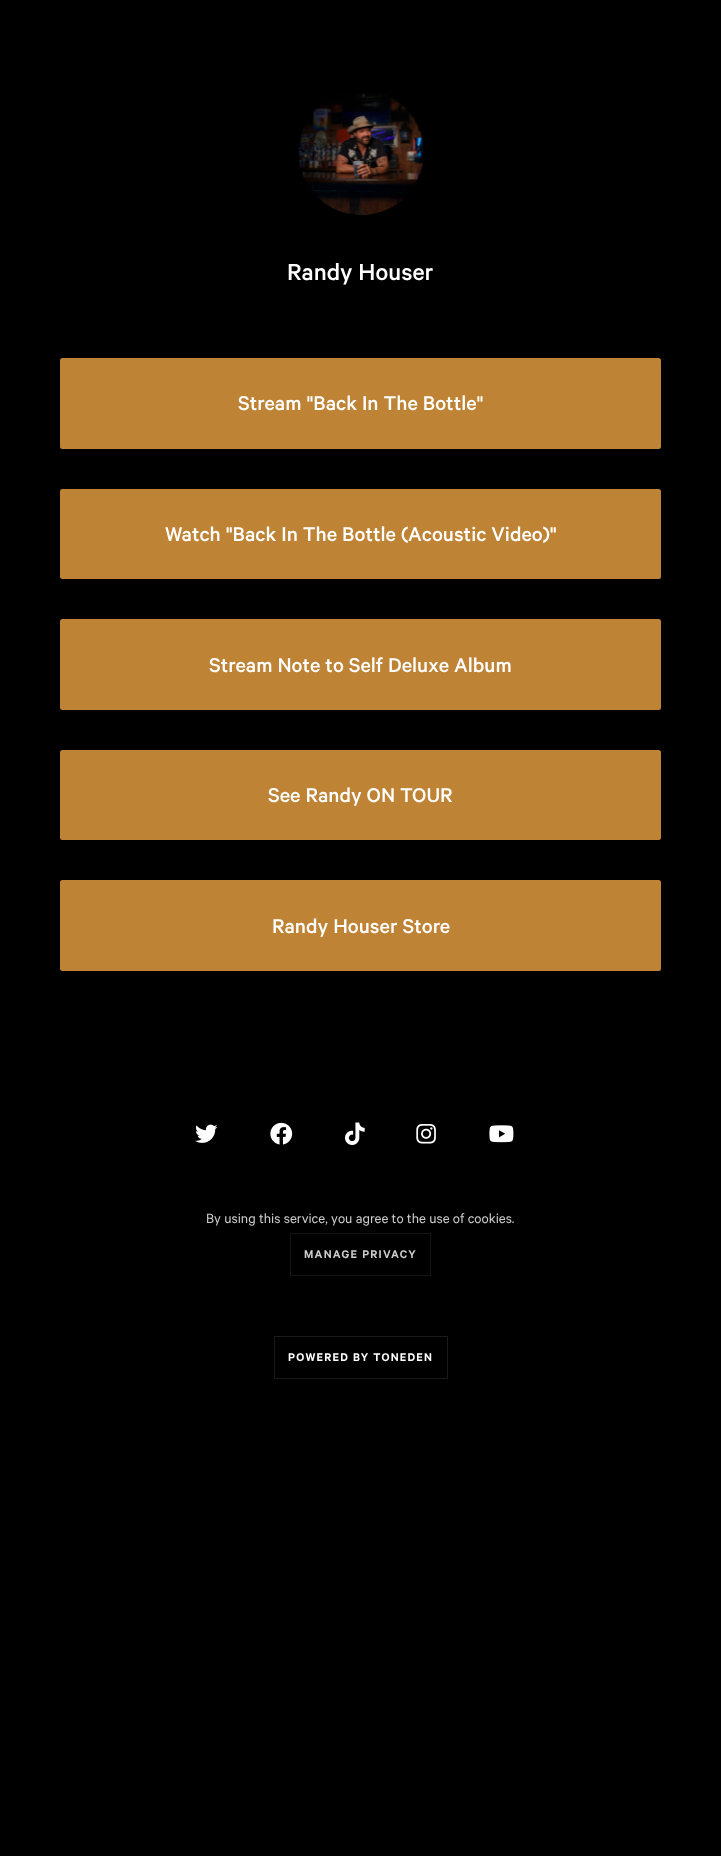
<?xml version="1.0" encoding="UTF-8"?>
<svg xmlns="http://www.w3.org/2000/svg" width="721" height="1856">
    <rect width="100%" height="100%" fill="#000000"/>
    <image x="298" y="93" width="126" height="122" href="img_01.png"/>
    <text x="287" y="280" font-family="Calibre" font-size="26.25" font-weight="500" fill="#FFFFFF">Randy Houser</text>
    <rect x="60" y="358" width="601" height="91" rx="2.5" fill="#BE8334"/>
    <text x="238" y="410" font-family="Calibre" font-size="22.5" font-weight="500" fill="#FFFFFF">Stream "Back In The Bottle"</text>
    <rect x="60" y="489" width="601" height="90" rx="2.5" fill="#BE8334"/>
    <text x="165" y="541" font-family="Calibre" font-size="22.5" font-weight="500" fill="#FFFFFF">Watch "Back In The Bottle (Acoustic Video)"</text>
    <rect x="60" y="619" width="601" height="91" rx="2.5" fill="#BE8334"/>
    <text x="209" y="672" font-family="Calibre" font-size="22.5" font-weight="500" fill="#FFFFFF">Stream Note to Self Deluxe Album</text>
    <rect x="60" y="750" width="601" height="90" rx="2.5" fill="#BE8334"/>
    <text x="268" y="802" font-family="Calibre" font-size="22.5" font-weight="500" fill="#FFFFFF">See Randy ON TOUR</text>
    <rect x="60" y="880" width="601" height="91" rx="2.5" fill="#BE8334"/>
    <text x="272" y="933" font-family="Calibre" font-size="22.5" font-weight="500" fill="#FFFFFF">Randy Houser Store</text>
    <image x="195" y="1124" width="23" height="19" href="img_02.png"/>
    <image x="270" y="1122" width="23" height="23" href="img_03.png"/>
    <image x="345" y="1122" width="20" height="23" href="img_04.png"/>
    <image x="416" y="1124" width="20" height="20" href="img_05.png"/>
    <image x="489" y="1125" width="25" height="18" href="img_06.png"/>
    <text x="206" y="1223" font-family="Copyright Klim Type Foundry" font-size="15" fill="#CCCCCC">By using this service, you agree to the use of cookies.</text>
    <rect x="290.5" y="1233.5" width="140" height="42" fill="none" stroke="#141414"/>
    <text x="304" y="1258" font-family="Calibre" font-size="12.5" font-weight="600" letter-spacing="1.25" fill="#CCCCCC">MANAGE PRIVACY</text>
    <rect x="274.5" y="1336.5" width="173" height="42" fill="none" stroke="#1A1A1A"/>
    <text x="288" y="1361" font-family="Calibre" font-size="12.5" font-weight="600" letter-spacing="1.25" fill="#FFFFFF">POWERED BY TONEDEN</text>
</svg>
